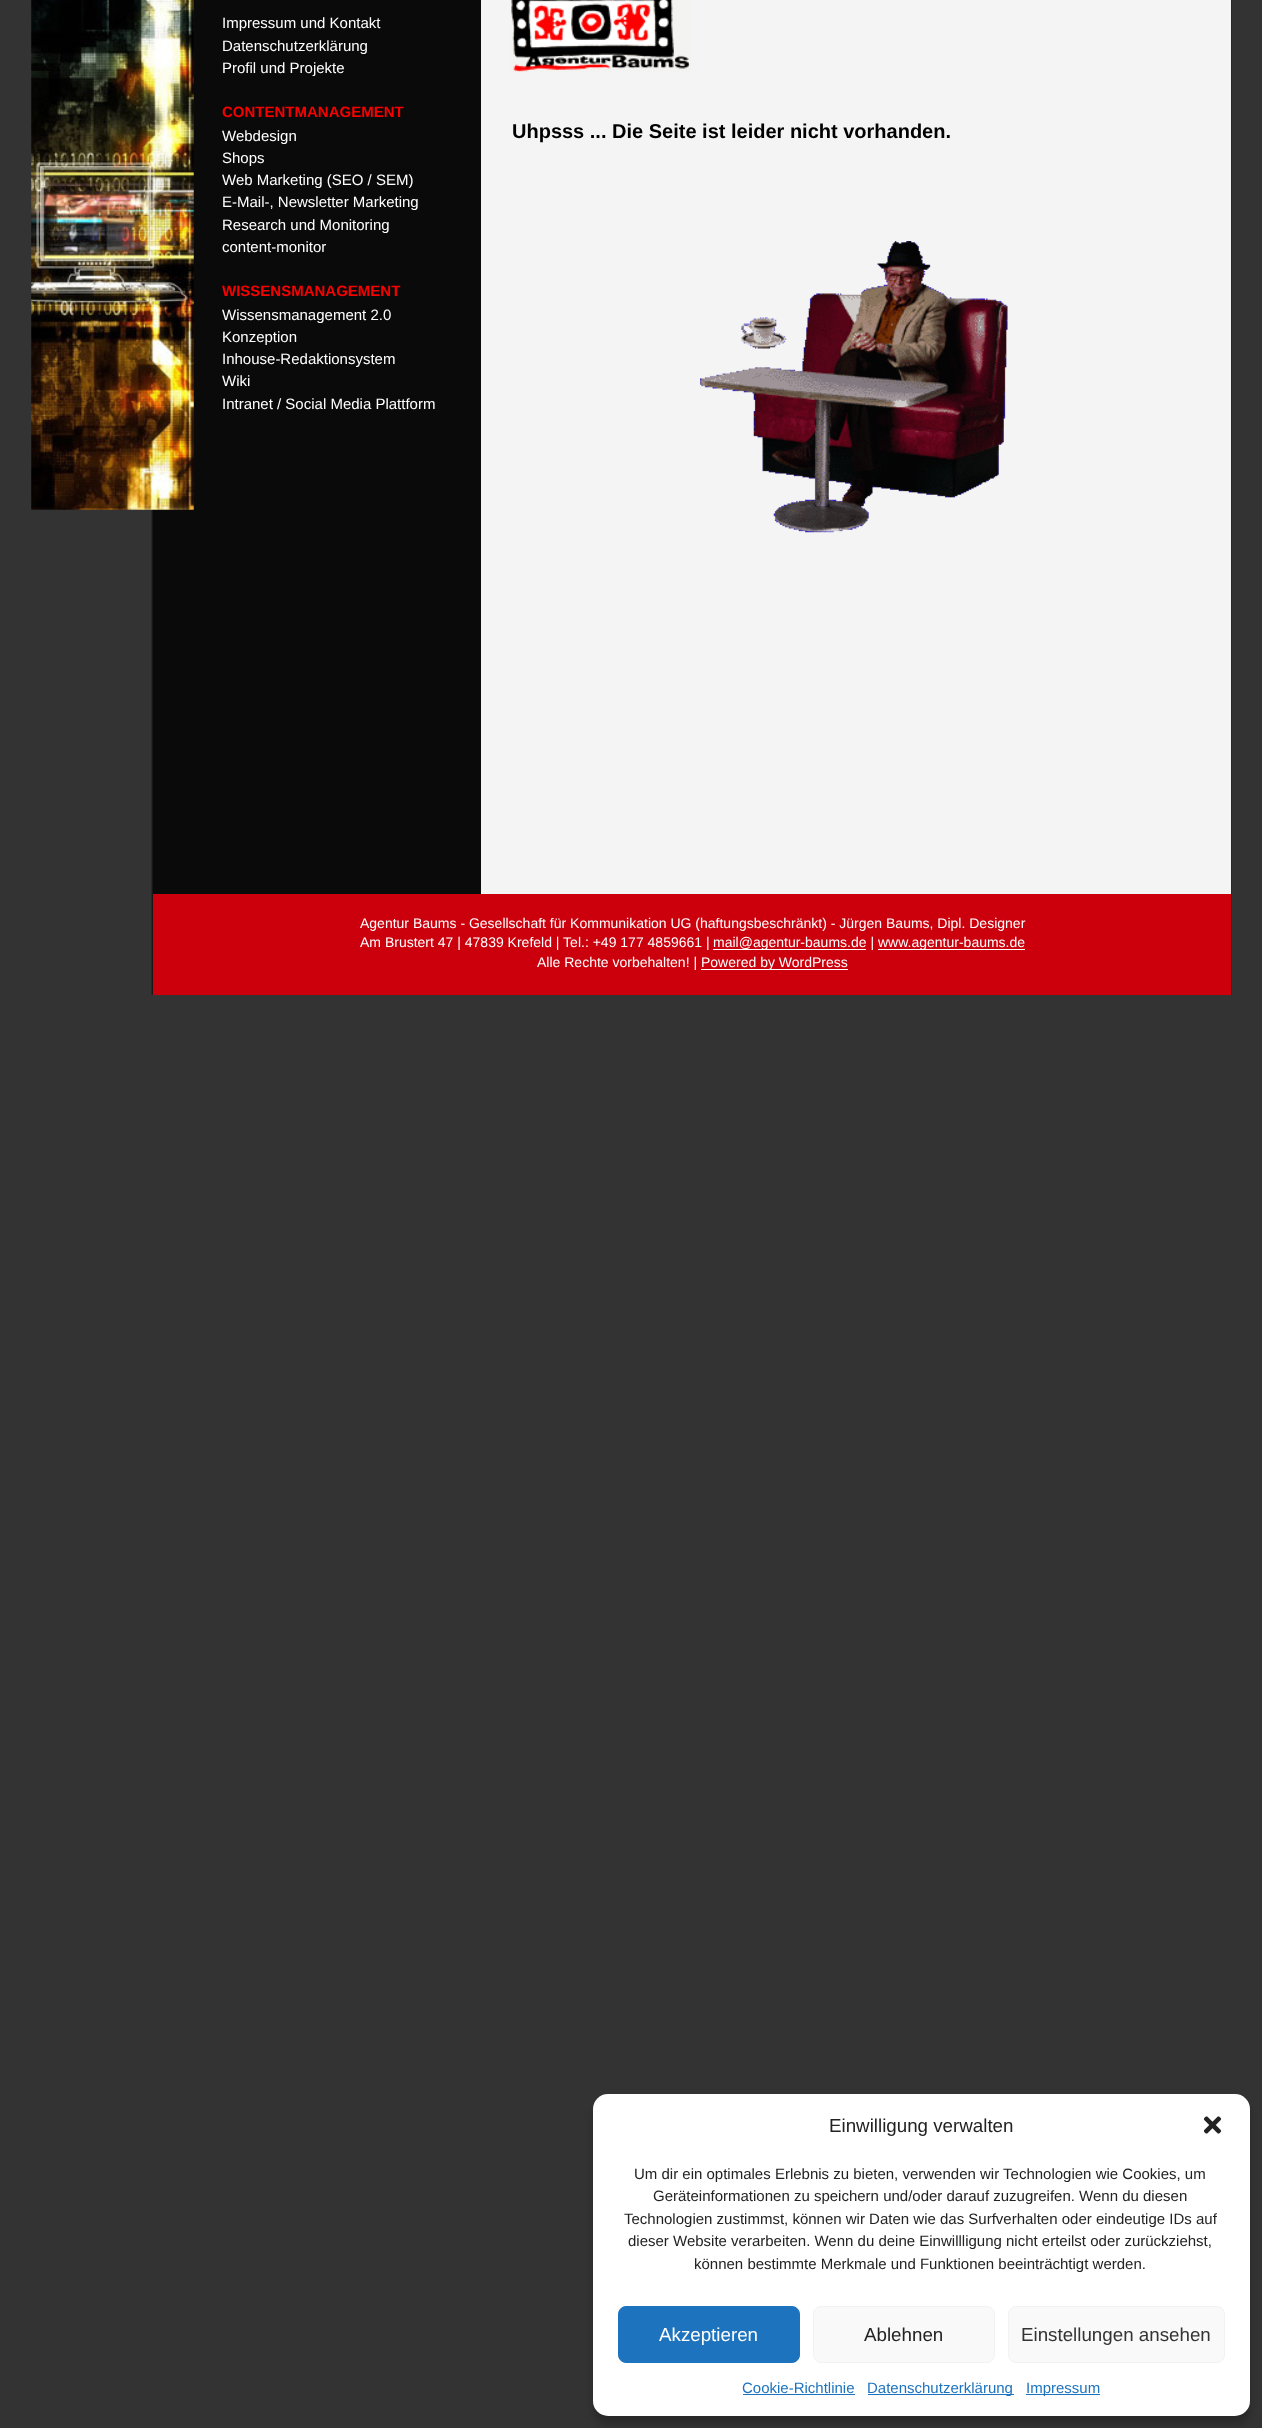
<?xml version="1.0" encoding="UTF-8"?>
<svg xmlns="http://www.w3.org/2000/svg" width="1262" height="2428">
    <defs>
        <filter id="blur1" x="-50%" y="-200%" width="200%" height="500%"><feGaussianBlur stdDeviation="4"/></filter>
    </defs>
    <rect width="100%" height="100%" fill="#333333"/>
    <image x="151" y="0" width="1081" height="995" href="img_01.png"/>
    <image x="31" y="0" width="163" height="510" href="img_02.png"/>
    <text font-family="Liberation Sans" font-size="15" fill="#FFFFFF">
        <tspan x="222" y="28">Impressum und Kontakt</tspan>
        <tspan x="222" y="51">Datenschutzerklärung</tspan>
        <tspan x="222" y="73">Profil und Projekte</tspan>
    </text>
    <text x="222" y="117" font-family="Liberation Sans" font-size="15" font-weight="700" fill="#F90000">CONTENTMANAGEMENT</text>
    <text font-family="Liberation Sans" font-size="15" fill="#FFFFFF">
        <tspan x="222" y="141">Webdesign</tspan>
        <tspan x="222" y="163">Shops</tspan>
        <tspan x="222" y="185">Web Marketing (SEO / SEM)</tspan>
        <tspan x="222" y="207">E-Mail-, Newsletter Marketing</tspan>
        <tspan x="222" y="230">Research und Monitoring</tspan>
        <tspan x="222" y="252">content-monitor</tspan>
    </text>
    <text x="222" y="296" font-family="Liberation Sans" font-size="15" font-weight="700" fill="#F90000">WISSENSMANAGEMENT</text>
    <text font-family="Liberation Sans" font-size="15" fill="#FFFFFF">
        <tspan x="222" y="320">Wissensmanagement 2.0</tspan>
        <tspan x="222" y="342">Konzeption</tspan>
        <tspan x="222" y="364">Inhouse-Redaktionsystem</tspan>
        <tspan x="222" y="386">Wiki</tspan>
        <tspan x="222" y="409">Intranet / Social Media Plattform</tspan>
    </text>
    <rect x="481" y="0" width="750" height="894" fill="#F4F4F4"/>
    <image x="511" y="0" width="180" height="72" href="img_03.png"/>
    <text x="512" y="138" font-family="Liberation Sans" font-size="20" font-weight="700" fill="#000000">Uhpsss ... Die Seite ist leider nicht vorhanden.</text>
    <image x="700" y="241" width="308" height="292" href="img_04.png"/>
    <rect x="153" y="894" width="1078" height="101" fill="#CC000C"/>
    <text font-family="Liberation Sans" font-size="14" fill="#FFFFFF">
        <tspan x="360" y="928">Agentur Baums - Gesellschaft für Kommunikation UG (haftungsbeschränkt) - Jürgen Baums, Dipl. Designer</tspan>
        <tspan x="360" y="947">Am Brustert 47 | 47839 Krefeld | Tel.: +49 177 4859661 |</tspan>
    </text>
    <rect x="713" y="949" width="153" height="1" fill="#FFFFFF"/>
    <text x="713" y="947" font-family="Liberation Sans" font-size="14" fill="#FFFFFF">mail@agentur-baums.de |</text>
    <rect x="878" y="949" width="147" height="1" fill="#FFFFFF"/>
    <text x="878" y="947" font-family="Liberation Sans" font-size="14" fill="#FFFFFF">www.agentur-baums.de</text>
    <text x="537" y="967" font-family="Liberation Sans" font-size="14" fill="#FFFFFF">Alle Rechte vorbehalten! |</text>
    <rect x="701" y="969" width="147" height="1" fill="#FFFFFF"/>
    <text x="701" y="967" font-family="Liberation Sans" font-size="14" fill="#FFFFFF">Powered by WordPress</text>
    <rect x="593" y="2101" width="657" height="323" rx="15" fill="#000000" fill-opacity="0.23" filter="url(#blur1)"/>
    <rect x="593" y="2094" width="657" height="322" rx="15" fill="#FFFFFF"/>
    <text x="829" y="2132" font-family="Liberation Sans" font-size="18.75" fill="#222222">Einwilligung verwalten</text>
    <image x="1203" y="2116" width="19" height="18" href="img_05.png"/>
    <text x="634" y="2179" font-family="Liberation Sans" font-size="15" fill="#222222">Um dir ein optimales Erlebnis zu bieten, verwenden wir Technologien wie Cookies, um</text>
    <text x="653" y="2201" font-family="Liberation Sans" font-size="15" fill="#222222">Geräteinformationen zu speichern und/oder darauf zuzugreifen. Wenn du diesen</text>
    <text x="624" y="2224" font-family="Liberation Sans" font-size="15" fill="#222222">Technologien zustimmst, können wir Daten wie das Surfverhalten oder eindeutige IDs auf</text>
    <text x="628" y="2246" font-family="Liberation Sans" font-size="15" fill="#222222">dieser Website verarbeiten. Wenn du deine Einwillligung nicht erteilst oder zurückziehst,</text>
    <text x="694" y="2269" font-family="Liberation Sans" font-size="15" fill="#222222">können bestimmte Merkmale und Funktionen beeinträchtigt werden.</text>
    <rect x="618.5" y="2306.5" width="181" height="56" rx="7.5" fill="#1E73BE" stroke="#1E73BE"/>
    <text x="659" y="2341" font-family="Liberation Sans" font-size="18.75" fill="#FFFFFF">Akzeptieren</text>
    <rect x="813.5" y="2306.5" width="181" height="56" rx="7.5" fill="#F9F9F9" stroke="#F2F2F2"/>
    <text x="864" y="2341" font-family="Liberation Sans" font-size="18.75" fill="#222222">Ablehnen</text>
    <rect x="1008.5" y="2306.5" width="216" height="56" rx="7.5" fill="#F9F9F9" stroke="#F2F2F2"/>
    <text x="1021" y="2341" font-family="Liberation Sans" font-size="18.75" fill="#333333">Einstellungen ansehen</text>
    <text x="742" y="2393" font-family="Liberation Sans" font-size="15" fill="#1E73BE">Cookie-Richtlinie</text>
    <rect x="743" y="2394" width="112" height="1" fill="#1E73BE"/>
    <rect x="868" y="2394" width="146" height="1" fill="#1E73BE"/>
    <text x="867" y="2393" font-family="Liberation Sans" font-size="15" fill="#1E73BE">Datenschutzerklärung</text>
    <rect x="1026" y="2394" width="74" height="1" fill="#1E73BE"/>
    <text x="1026" y="2393" font-family="Liberation Sans" font-size="15" fill="#1E73BE">Impressum</text>
</svg>
